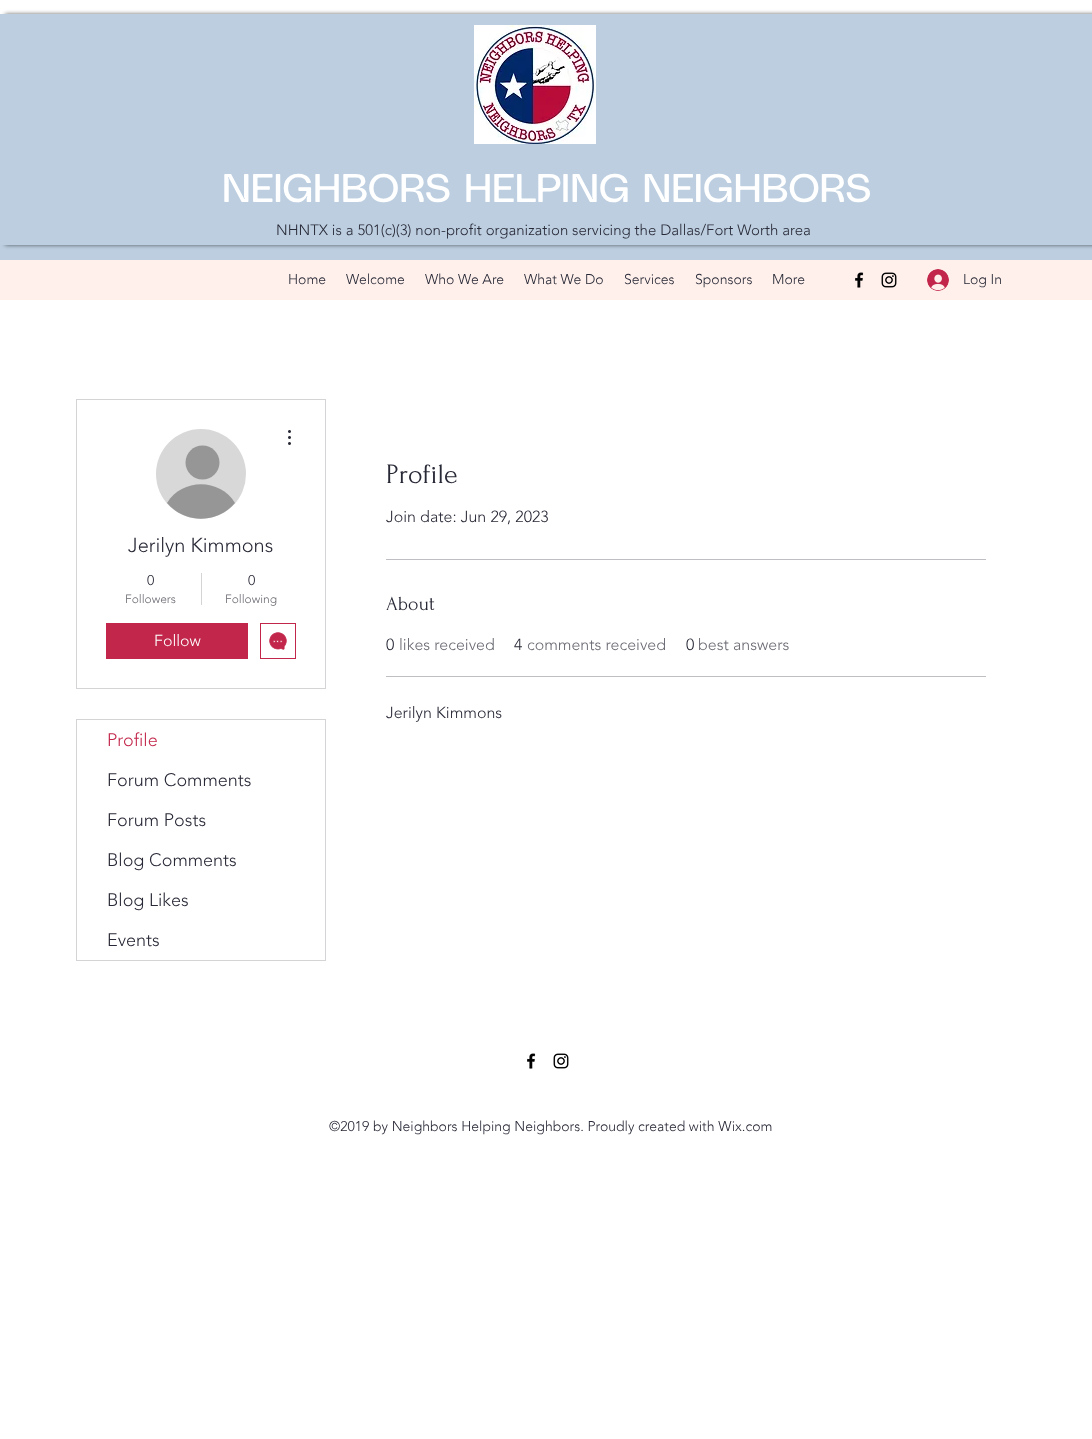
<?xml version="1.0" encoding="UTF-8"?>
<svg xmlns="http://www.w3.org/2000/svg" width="1092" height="1439">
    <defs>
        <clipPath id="clip1"><path d="M 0 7 H 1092 V 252 H 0 Z M 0 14 H 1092 V 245 H 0 Z" clip-rule="evenodd"/></clipPath>
        <filter id="blur1" x="-50%" y="-200%" width="200%" height="500%"><feGaussianBlur stdDeviation="2"/></filter>
    </defs>
    <rect width="100%" height="100%" fill="#FFFFFF"/>
    <rect x="0" y="14" width="1092" height="246" fill="#BCCEE0"/>
    <g clip-path="url(#clip1)">
        <rect x="5" y="14" width="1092" height="231" fill="#000000" fill-opacity="0.6" filter="url(#blur1)"/>
    </g>
    <image x="474" y="25" width="122" height="119" href="img_01.png"/>
    <text x="222" y="202" font-family="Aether" font-size="40" fill="#FFFFFF">NEIGHBORS HELPING NEIGHBORS</text>
    <text x="276" y="235" font-family="'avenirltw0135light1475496'" font-size="15" font-weight="300" fill="#282936">NHNTX is a 501(c)(3) non-profit organization servicing the Dallas/Fort Worth area</text>
    <rect x="0" y="260" width="1092" height="40" fill="#FFF0EC"/>
    <text x="288" y="284" font-family="'avenirltw0135light1475496'" font-size="14" font-weight="300" fill="#282936">Home</text>
    <text x="346" y="284" font-family="'avenirltw0135light1475496'" font-size="14" font-weight="300" fill="#282936">Welcome</text>
    <text x="425" y="284" font-family="'avenirltw0135light1475496'" font-size="14" font-weight="300" fill="#282936">Who We Are</text>
    <text x="524" y="284" font-family="'avenirltw0135light1475496'" font-size="14" font-weight="300" fill="#282936">What We Do</text>
    <text x="624" y="284" font-family="'avenirltw0135light1475496'" font-size="14" font-weight="300" fill="#282936">Services</text>
    <text x="695" y="284" font-family="'avenirltw0135light1475496'" font-size="14" font-weight="300" fill="#282936">Sponsors</text>
    <text x="772" y="284" font-family="'avenirltw0135light1475496'" font-size="14" font-weight="300" fill="#282936">More</text>
    <image x="855" y="272" width="9" height="16" href="img_02.png"/>
    <image x="881" y="272" width="16" height="16" href="img_03.png"/>
    <image x="927" y="269" width="22" height="22" href="img_04.png"/>
    <text x="963" y="284" font-family="'avenirltw0135light1475496'" font-size="14" font-weight="300" fill="#282936">Log In</text>
    <rect x="76.5" y="399.5" width="249" height="289" fill="none" stroke="#D4D4D7"/>
    <circle cx="201" cy="474" r="45" fill="#D8D8D8"/>
    <circle cx="202.5" cy="462.5" r="17" fill="#969696"/>
    <path d="M 235 503 C 217 524 185 524 167 503 C 182 478 220 478 235 503 Z" fill="#969696"/>
    <image x="288" y="430" width="3" height="15" href="img_05.png"/>
    <text x="128" y="552" font-family="'avenirltw0135light1475496'" font-size="20" font-weight="300" fill="#282936">Jerilyn Kimmons</text>
    <text x="147" y="585" font-family="'avenirltw0135light1475496'" font-size="14" font-weight="300" fill="#282936">0</text>
    <text x="125" y="603" font-family="'avenirltw0135light1475496'" font-size="12" font-weight="300" fill="#696972">Followers</text>
    <rect x="201" y="573" width="1" height="32" fill="#D4D4D7"/>
    <text x="248" y="585" font-family="'avenirltw0135light1475496'" font-size="14" font-weight="300" fill="#282936">0</text>
    <text x="225" y="603" font-family="'avenirltw0135light1475496'" font-size="12" font-weight="300" fill="#696972">Following</text>
    <rect x="106" y="623" width="142" height="36" fill="#C2274B"/>
    <text x="154" y="646" font-family="'avenirltw0135light1475496'" font-size="16" font-weight="300" fill="#FFFFFF">Follow</text>
    <rect x="260.5" y="623.5" width="35" height="35" fill="none" stroke="#C2274B"/>
    <image x="269" y="632" width="18" height="18" href="img_06.png"/>
    <rect x="76.5" y="719.5" width="249" height="241" fill="none" stroke="#D4D4D7"/>
    <text x="107" y="746" font-family="'avenirltw0135light1475496'" font-size="18" font-weight="300" fill="#C2274B">Profile</text>
    <text x="107" y="786" font-family="'avenirltw0135light1475496'" font-size="18" font-weight="300" fill="#282936">Forum Comments</text>
    <text x="107" y="826" font-family="'avenirltw0135light1475496'" font-size="18" font-weight="300" fill="#282936">Forum Posts</text>
    <text x="107" y="866" font-family="'avenirltw0135light1475496'" font-size="18" font-weight="300" fill="#282936">Blog Comments</text>
    <text x="107" y="906" font-family="'avenirltw0135light1475496'" font-size="18" font-weight="300" fill="#282936">Blog Likes</text>
    <text x="107" y="946" font-family="'avenirltw0135light1475496'" font-size="18" font-weight="300" fill="#282936">Events</text>
    <text x="386" y="483" font-family="Forum" font-size="28" fill="#282936">Profile</text>
    <text x="386" y="522" font-family="'avenirltw0135light1475496'" font-size="16" font-weight="300" fill="#282936">Join date: Jun 29, 2023</text>
    <rect x="386" y="559" width="600" height="1" fill="#BFBFC3"/>
    <text x="386" y="610" font-family="Forum" font-size="20" fill="#282936">About</text>
    <text x="386" y="650" font-family="'avenirltw0135light1475496'" font-size="16" font-weight="300" fill="#282936">0</text>
    <text x="399" y="650" font-family="'avenirltw0135light1475496'" font-size="16" font-weight="300" fill="#696972">likes received</text>
    <text x="514" y="650" font-family="'avenirltw0135light1475496'" font-size="16" font-weight="300" fill="#282936">4</text>
    <text x="527" y="650" font-family="'avenirltw0135light1475496'" font-size="16" font-weight="300" fill="#696972">comments received</text>
    <text x="686" y="650" font-family="'avenirltw0135light1475496'" font-size="16" font-weight="300" fill="#282936">0</text>
    <text x="698" y="650" font-family="'avenirltw0135light1475496'" font-size="16" font-weight="300" fill="#696972">best answers</text>
    <rect x="386" y="676" width="600" height="1" fill="#BFBFC3"/>
    <text x="386" y="718" font-family="'avenirltw0135light1475496'" font-size="16" font-weight="300" fill="#282936">Jerilyn Kimmons</text>
    <image x="527" y="1053" width="9" height="16" href="img_07.png"/>
    <image x="553" y="1053" width="16" height="16" href="img_08.png"/>
    <text x="329" y="1131" font-family="'avenirltw0135light1475496'" font-size="14" font-weight="300" fill="#282936">©2019 by Neighbors Helping Neighbors. Proudly created with Wix.com</text>
</svg>
